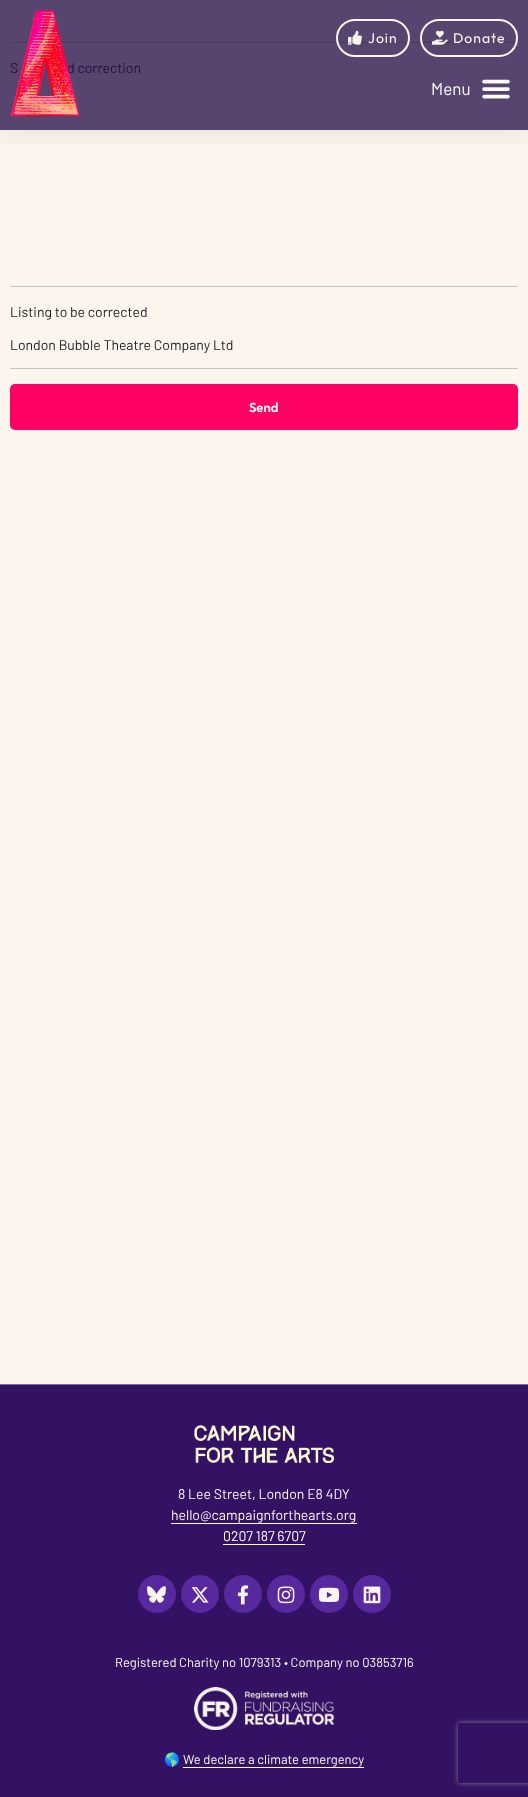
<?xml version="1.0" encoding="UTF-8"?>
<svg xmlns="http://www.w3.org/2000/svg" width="528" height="1797">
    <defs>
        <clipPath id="clip1"><rect x="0" y="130" width="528" height="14"/></clipPath>
        <filter id="blur1" x="-50%" y="-200%" width="200%" height="500%"><feGaussianBlur stdDeviation="16.5"/></filter>
        <clipPath id="clip2"><path d="M 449 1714 H 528 V 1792 H 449 Z M 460 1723 H 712 C 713 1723 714 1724 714 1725 V 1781 C 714 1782 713 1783 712 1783 H 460 C 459 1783 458 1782 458 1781 V 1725 C 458 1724 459 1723 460 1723 Z" clip-rule="evenodd"/></clipPath>
        <filter id="blur2" x="-50%" y="-200%" width="200%" height="500%"><feGaussianBlur stdDeviation="2.5"/></filter>
    </defs>
    <rect width="100%" height="100%" fill="#FBF5ED"/>
    <rect x="0" y="0" width="528" height="130" fill="#58456F"/>
    <rect x="10" y="42" width="508" height="1" fill="#4C3963"/>
    <text x="10" y="73" font-family="Barlow" font-size="14" fill="#23113E">S</text>
    <text x="67" y="73" font-family="Barlow" font-size="14" fill="#23113E">d correction</text>
    <rect x="10" y="286" width="508" height="1" fill="#C9C4BE"/>
    <text x="10" y="317" font-family="Barlow" font-size="14" fill="#242429">Listing to be corrected</text>
    <rect x="10" y="368" width="508" height="1" fill="#C9C4BE"/>
    <text x="10" y="350" font-family="Barlow" font-size="14" fill="#242429">London Bubble Theatre Company Ltd</text>
    <rect x="10" y="384" width="508" height="46" rx="5" fill="#FF0064"/>
    <text x="249" y="412" font-family="Outfit" font-size="13" font-weight="600" fill="#FFFFFF">Send</text>
    <g clip-path="url(#clip1)">
        <rect x="-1" y="3" width="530" height="132" fill="#000000" fill-opacity="0.07" filter="url(#blur1)"/>
    </g>
    <image x="10" y="10" width="70" height="107" href="img_01.png"/>
    <rect x="337" y="20" width="72" height="36" rx="18" fill="none" stroke="#FBF5ED" stroke-width="2"/>
    <image x="348" y="30" width="14" height="15" href="img_02.png"/>
    <text x="368" y="43" font-family="Outfit" font-size="14" letter-spacing="1" fill="#FBF5ED">Join</text>
    <rect x="421" y="20" width="96" height="36" rx="18" fill="none" stroke="#FBF5ED" stroke-width="2"/>
    <image x="432" y="30" width="16" height="15" href="img_03.png"/>
    <text x="453" y="43" font-family="Outfit" font-size="14" letter-spacing="1" fill="#FBF5ED">Donate</text>
    <text x="431" y="95" font-family="Barlow" font-size="17" fill="#FFFFFF">Menu</text>
    <image x="482" y="79" width="28" height="20" href="img_04.png"/>
    <rect x="0" y="1385" width="528" height="412" fill="#331263"/>
    <rect x="0" y="1384" width="528" height="1" fill="#7D679B"/>
    <image x="194" y="1425" width="140" height="38" href="img_05.png"/>
    <text x="178" y="1499" font-family="Barlow" font-size="14" fill="#FBF5ED">8 Lee Street, London E8 4DY</text>
    <text x="171" y="1520" font-family="Barlow" font-size="14" fill="#FBF5ED">hello@campaignforthearts.org</text>
    <rect x="171" y="1523" width="186" height="1" fill="#FFFFFF"/>
    <text x="223" y="1541" font-family="Barlow" font-size="14" fill="#FFFFFF">0207 187 6707</text>
    <rect x="223" y="1544" width="82" height="1" fill="#FFFFFF"/>
    <circle cx="157" cy="1594" r="19" fill="#58289E"/>
    <image x="147" y="1586" width="19" height="17" href="img_06.png"/>
    <circle cx="200" cy="1594" r="19" fill="#58289E"/>
    <image x="191" y="1587" width="18" height="16" href="img_07.png"/>
    <circle cx="243" cy="1594" r="19" fill="#58289E"/>
    <image x="237" y="1585" width="12" height="20" href="img_08.png"/>
    <circle cx="286" cy="1594" r="19" fill="#58289E"/>
    <image x="277" y="1586" width="18" height="18" href="img_09.png"/>
    <circle cx="329" cy="1594" r="19" fill="#58289E"/>
    <image x="318" y="1587" width="22" height="15" href="img_10.png"/>
    <circle cx="372" cy="1594" r="19" fill="#58289E"/>
    <image x="363" y="1586" width="18" height="18" href="img_11.png"/>
    <text x="115" y="1667" font-family="Barlow" font-size="13" fill="#FBF5ED">Registered Charity no 1079313 • Company no 03853716</text>
    <image x="194" y="1687" width="140" height="43" href="img_12.png"/>
    <text x="164" y="1764" font-family="Noto Color Emoji" font-size="13" fill="#333333">🌎</text>
    <text x="183" y="1764" font-family="Barlow" font-size="13" fill="#FBF5ED">We declare a climate emergency</text>
    <rect x="183" y="1767" width="181" height="1" fill="#FFFFFF"/>
    <g clip-path="url(#clip2)">
        <rect x="458" y="1723" width="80" height="60" rx="2" fill="#808080" filter="url(#blur2)"/>
    </g>
</svg>
